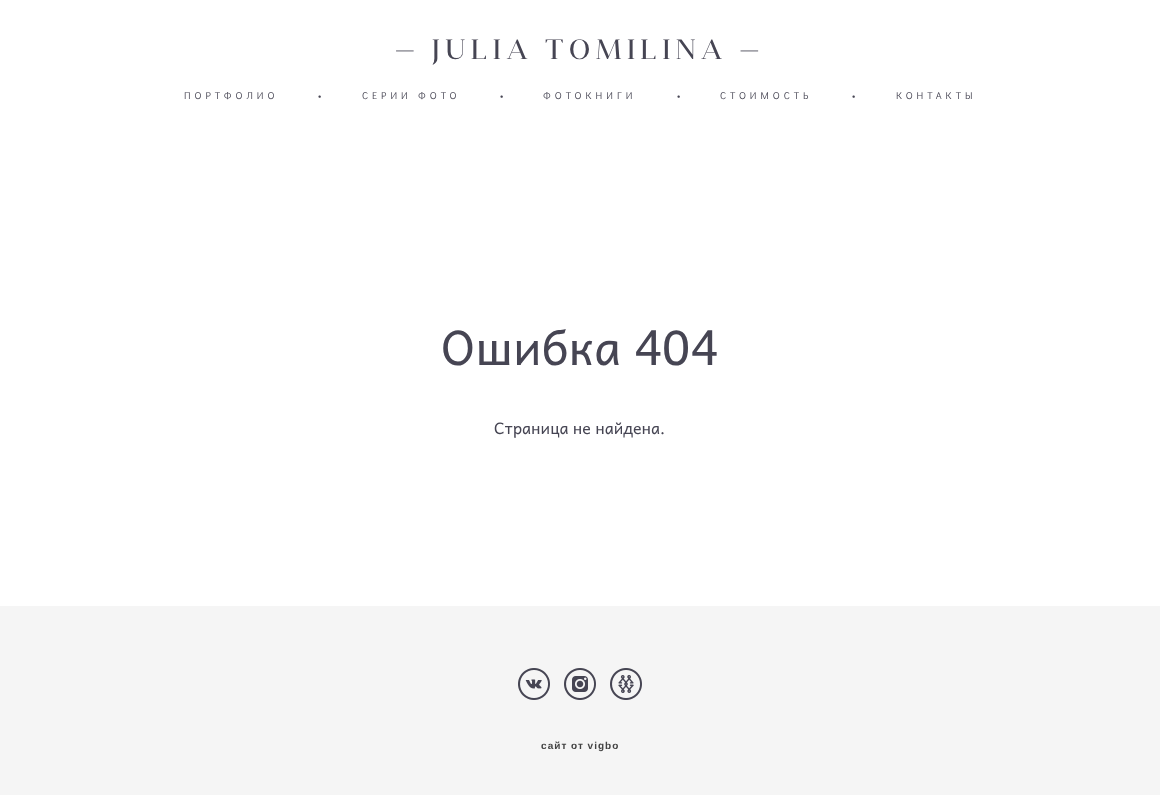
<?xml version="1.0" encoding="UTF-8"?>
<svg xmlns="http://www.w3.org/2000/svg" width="1160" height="795">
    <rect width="100%" height="100%" fill="#FFFFFF"/>
    <text x="395" y="59" font-family="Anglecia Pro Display" font-size="28" letter-spacing="5.6" fill="#464553">— JULIA TOMILINA —</text>
    <text x="184" y="99" font-family="Didact Gothic" font-size="10" letter-spacing="4" fill="#464553">ПОРТФОЛИО</text>
    <text x="318" y="99" font-family="Didact Gothic" font-size="10" fill="#464553">•</text>
    <text x="362" y="99" font-family="Didact Gothic" font-size="10" letter-spacing="4" fill="#464553">СЕРИИ ФОТО</text>
    <text x="500" y="99" font-family="Didact Gothic" font-size="10" fill="#464553">•</text>
    <text x="543" y="99" font-family="Didact Gothic" font-size="10" letter-spacing="4" fill="#464553">ФОТОКНИГИ</text>
    <text x="677" y="99" font-family="Didact Gothic" font-size="10" fill="#464553">•</text>
    <text x="720" y="99" font-family="Didact Gothic" font-size="10" letter-spacing="4" fill="#464553">СТОИМОСТЬ</text>
    <text x="852" y="99" font-family="Didact Gothic" font-size="10" fill="#464553">•</text>
    <text x="896" y="99" font-family="Didact Gothic" font-size="10" letter-spacing="4" fill="#464553">КОНТАКТЫ</text>
    <text x="441" y="365" font-family="Andika" font-size="48" fill="#464553">Ошибка 404</text>
    <text x="494" y="434" font-family="Andika" font-size="16" fill="#464553">Страница не найдена.</text>
    <rect x="0" y="606" width="1160" height="189" fill="#F5F5F5"/>
    <image x="518" y="668" width="32" height="32" href="img_01.png"/>
    <image x="564" y="668" width="32" height="32" href="img_02.png"/>
    <image x="610" y="668" width="32" height="32" href="img_03.png"/>
    <text x="541" y="749" font-family="Liberation Sans" font-size="10" font-weight="700" letter-spacing="1" fill="#424242">сайт от vigbo</text>
</svg>
